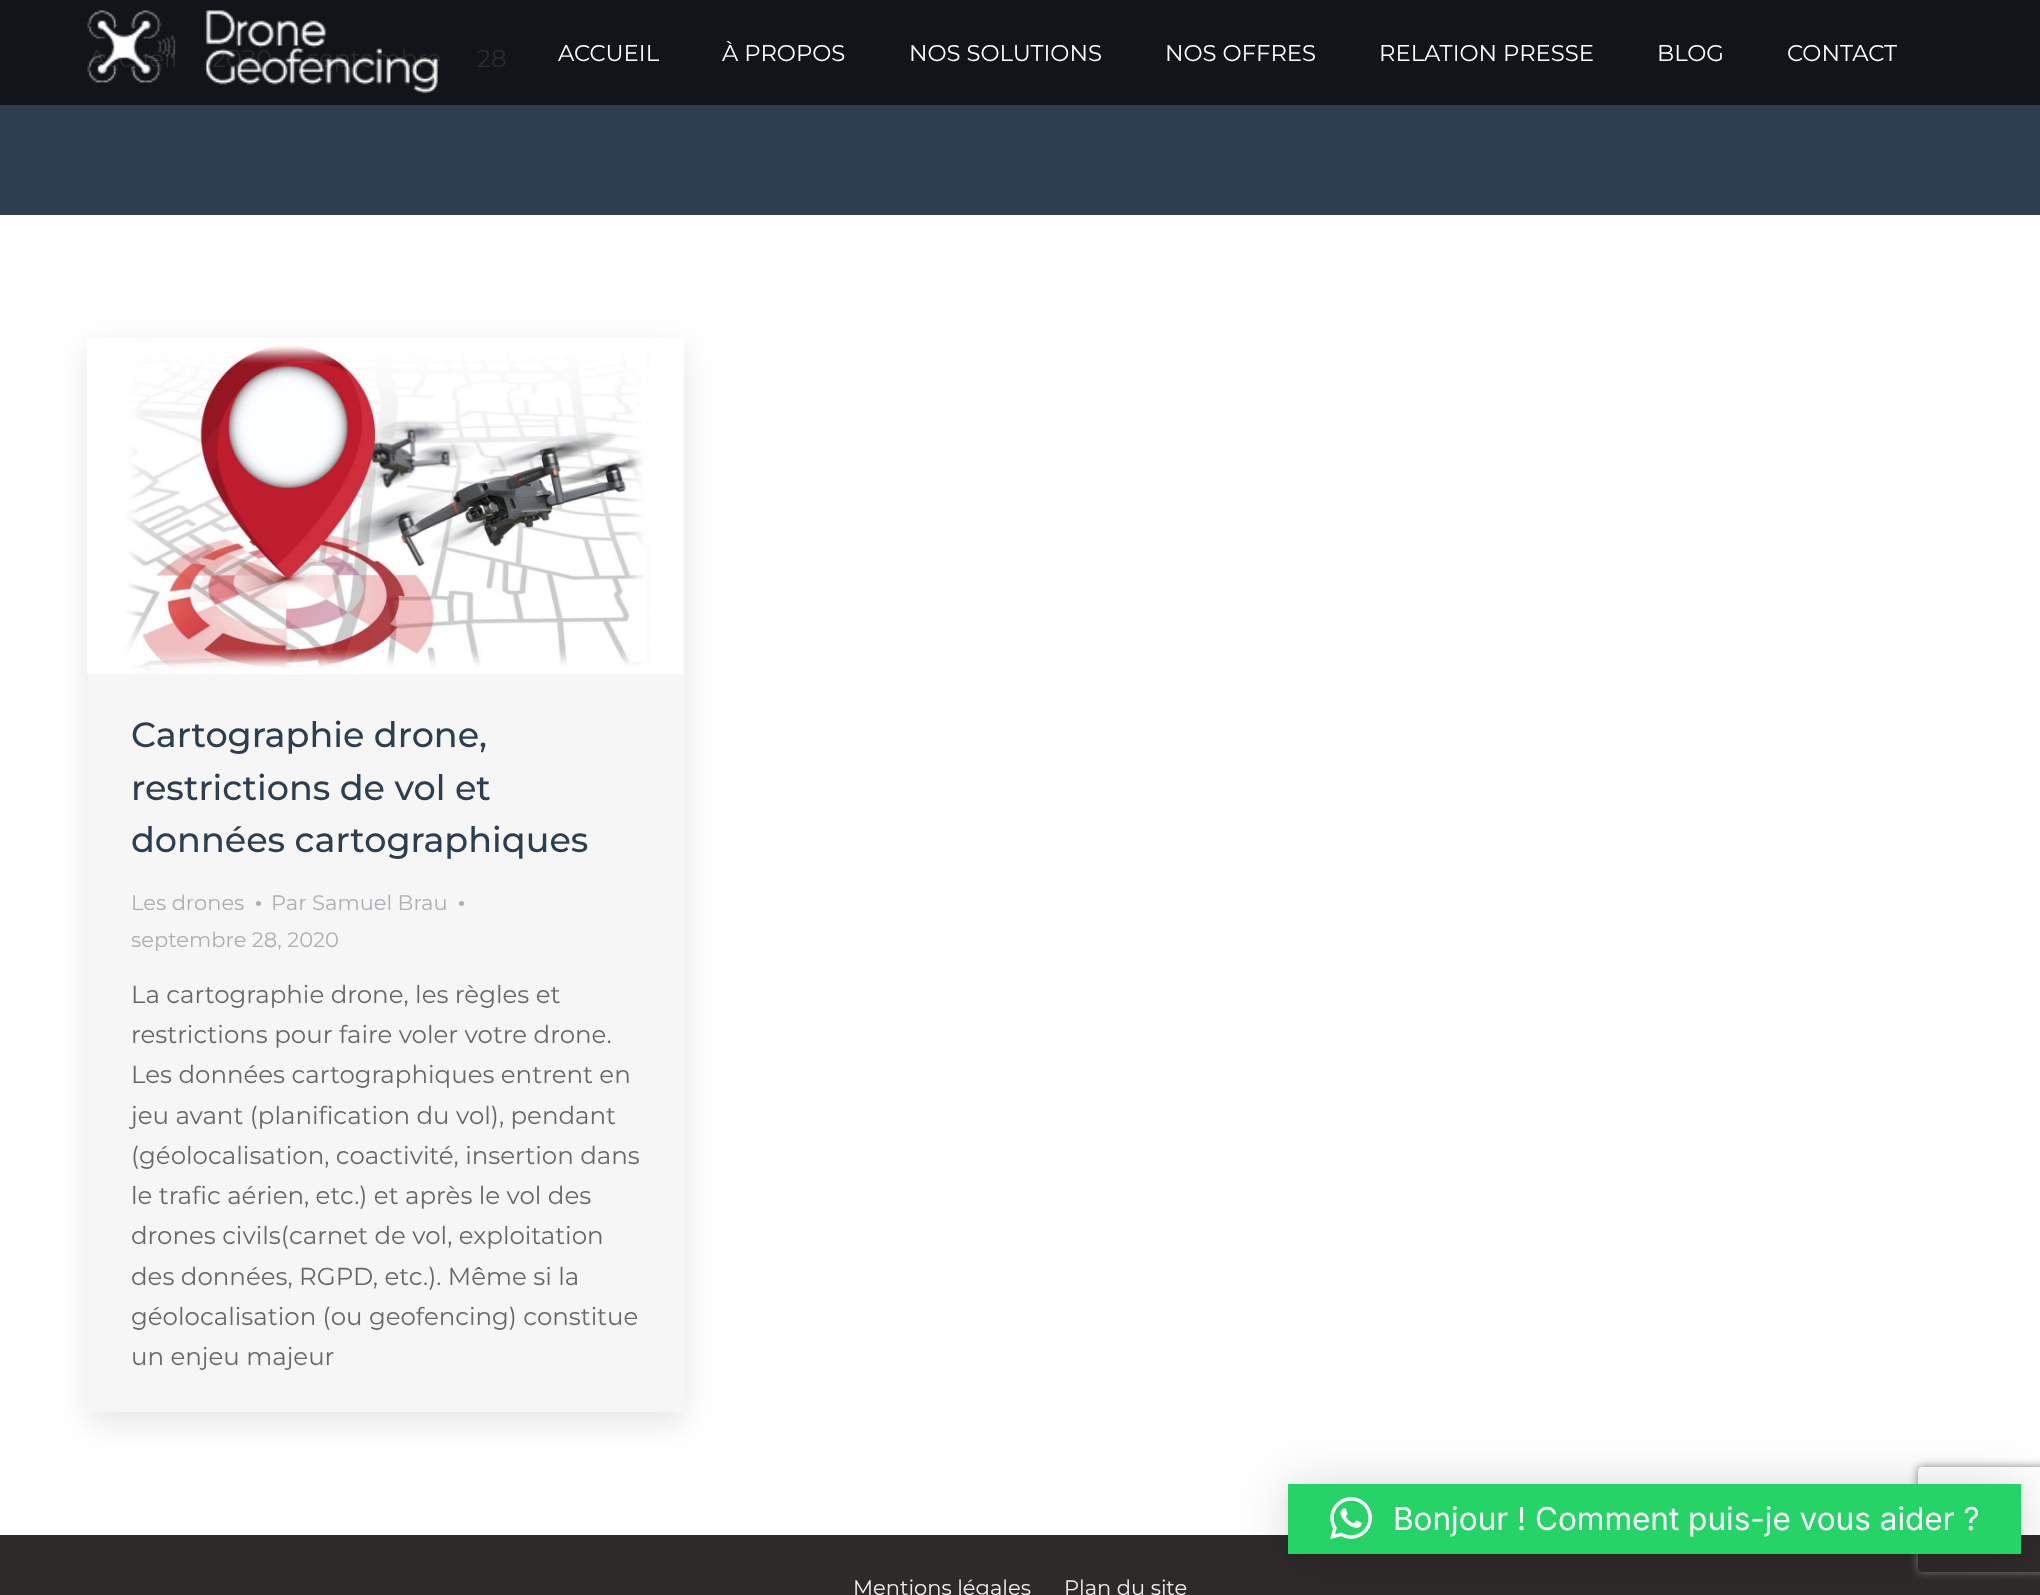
<?xml version="1.0" encoding="UTF-8"?>
<svg xmlns="http://www.w3.org/2000/svg" width="2040" height="1595">
    <defs>
        <filter id="blur1" x="-50%" y="-200%" width="200%" height="500%"><feGaussianBlur stdDeviation="16"/></filter>
        <clipPath id="clip1"><path d="M 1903 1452 H 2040 V 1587 H 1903 Z M 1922 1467 H 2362 C 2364 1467 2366 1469 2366 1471 V 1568 C 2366 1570 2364 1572 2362 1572 H 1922 C 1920 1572 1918 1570 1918 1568 V 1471 C 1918 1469 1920 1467 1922 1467 Z" clip-rule="evenodd"/></clipPath>
        <filter id="blur2" x="-50%" y="-200%" width="200%" height="500%"><feGaussianBlur stdDeviation="4.5"/></filter>
        <filter id="blur3" x="-50%" y="-200%" width="200%" height="500%"><feGaussianBlur stdDeviation="28"/></filter>
        <filter id="blur4" x="-50%" y="-200%" width="200%" height="500%"><feGaussianBlur stdDeviation="5"/></filter>
    </defs>
    <rect width="100%" height="100%" fill="#FFFFFF"/>
    <rect x="0" y="105" width="2040" height="110" fill="#2C3E50"/>
    <rect x="0" y="0" width="2040" height="105" fill="#111418"/>
    <text x="88" y="67" font-family="Montserrat" font-size="24.5" fill="#2B2B2C">Accueil</text>
    <text x="212" y="67" font-family="Montserrat" font-size="24.5" fill="#2B2B2C">2020</text>
    <text x="307" y="67" font-family="Montserrat" font-size="24.5" fill="#2B2B2C">septembre</text>
    <text x="477" y="67" font-family="Montserrat" font-size="24.5" fill="#2B2B2C">28</text>
    <image x="87" y="10" width="351" height="84" href="img_01.png"/>
    <text x="558" y="61" font-family="Montserrat" font-size="22.75" fill="#FFFFFF">ACCUEIL</text>
    <text x="722" y="61" font-family="Montserrat" font-size="22.75" fill="#FFFFFF">À PROPOS</text>
    <text x="909" y="61" font-family="Montserrat" font-size="22.75" fill="#FFFFFF">NOS SOLUTIONS</text>
    <text x="1165" y="61" font-family="Montserrat" font-size="22.75" fill="#FFFFFF">NOS OFFRES</text>
    <text x="1379" y="61" font-family="Montserrat" font-size="22.75" fill="#FFFFFF">RELATION PRESSE</text>
    <text x="1657" y="61" font-family="Montserrat" font-size="22.75" fill="#FFFFFF">BLOG</text>
    <text x="1787" y="61" font-family="Montserrat" font-size="22.75" fill="#FFFFFF">CONTACT</text>
    <rect x="88" y="348" width="596" height="1075" fill="#000000" fill-opacity="0.1" filter="url(#blur1)"/>
    <rect x="88" y="674" width="596" height="738" fill="#F6F6F6"/>
    <image x="87" y="338" width="597" height="336" href="img_02.png"/>
    <text font-family="Montserrat" font-size="35" font-weight="500" fill="#2C3E50">
        <tspan x="131" y="747">Cartographie drone,</tspan>
        <tspan x="131" y="800">restrictions de vol et</tspan>
        <tspan x="131" y="852">données cartographiques</tspan>
    </text>
    <text x="131" y="910" font-family="Montserrat" font-size="21" fill="#ADAFB3">Les drones</text>
    <circle cx="258.5" cy="903.5" r="2.5" fill="#ADAFB3"/>
    <text x="271" y="910" font-family="Montserrat" font-size="21" fill="#ADAFB3">Par Samuel Brau</text>
    <circle cx="461.5" cy="903.5" r="2.5" fill="#ADAFB3"/>
    <text x="131" y="947" font-family="Montserrat" font-size="21" fill="#ADAFB3">septembre 28, 2020</text>
    <text font-family="Montserrat" font-size="24.5" fill="#686868">
        <tspan x="131" y="1003">La cartographie drone, les règles et</tspan>
        <tspan x="131" y="1043">restrictions pour faire voler votre drone.</tspan>
        <tspan x="131" y="1083">Les données cartographiques entrent en</tspan>
        <tspan x="131" y="1124">jeu avant (planification du vol), pendant</tspan>
        <tspan x="131" y="1164">(géolocalisation, coactivité, insertion dans</tspan>
        <tspan x="131" y="1204">le trafic aérien, etc.) et après le vol des</tspan>
        <tspan x="131" y="1244">drones civils(carnet de vol, exploitation</tspan>
        <tspan x="131" y="1285">des données, RGPD, etc.). Même si la</tspan>
        <tspan x="131" y="1325">géolocalisation (ou geofencing) constitue</tspan>
        <tspan x="131" y="1365">un enjeu majeur</tspan>
    </text>
    <rect x="0" y="1535" width="2040" height="60" fill="#2F2A2A"/>
    <text x="853" y="1595" font-family="Montserrat" font-size="21" fill="#EEEEEE">Mentions légales</text>
    <text x="1064" y="1595" font-family="Montserrat" font-size="21" fill="#EEEEEE">Plan du site</text>
    <g clip-path="url(#clip1)">
        <rect x="1918" y="1467" width="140" height="105" rx="4" fill="#808080" filter="url(#blur2)"/>
    </g>
    <rect x="1288" y="1488" width="733" height="70" fill="#000000" fill-opacity="0.16" filter="url(#blur3)"/>
    <rect x="1288" y="1486" width="733" height="70" fill="#000000" fill-opacity="0.06" filter="url(#blur4)"/>
    <rect x="1288" y="1484" width="733" height="70" fill="#25D366"/>
    <image x="1330" y="1497" width="42" height="43" href="img_03.png"/>
    <text x="1393" y="1530" font-family="Inter" font-size="31.5" fill="#FFFFFF">Bonjour ! Comment puis-je vous aider ?</text>
</svg>
